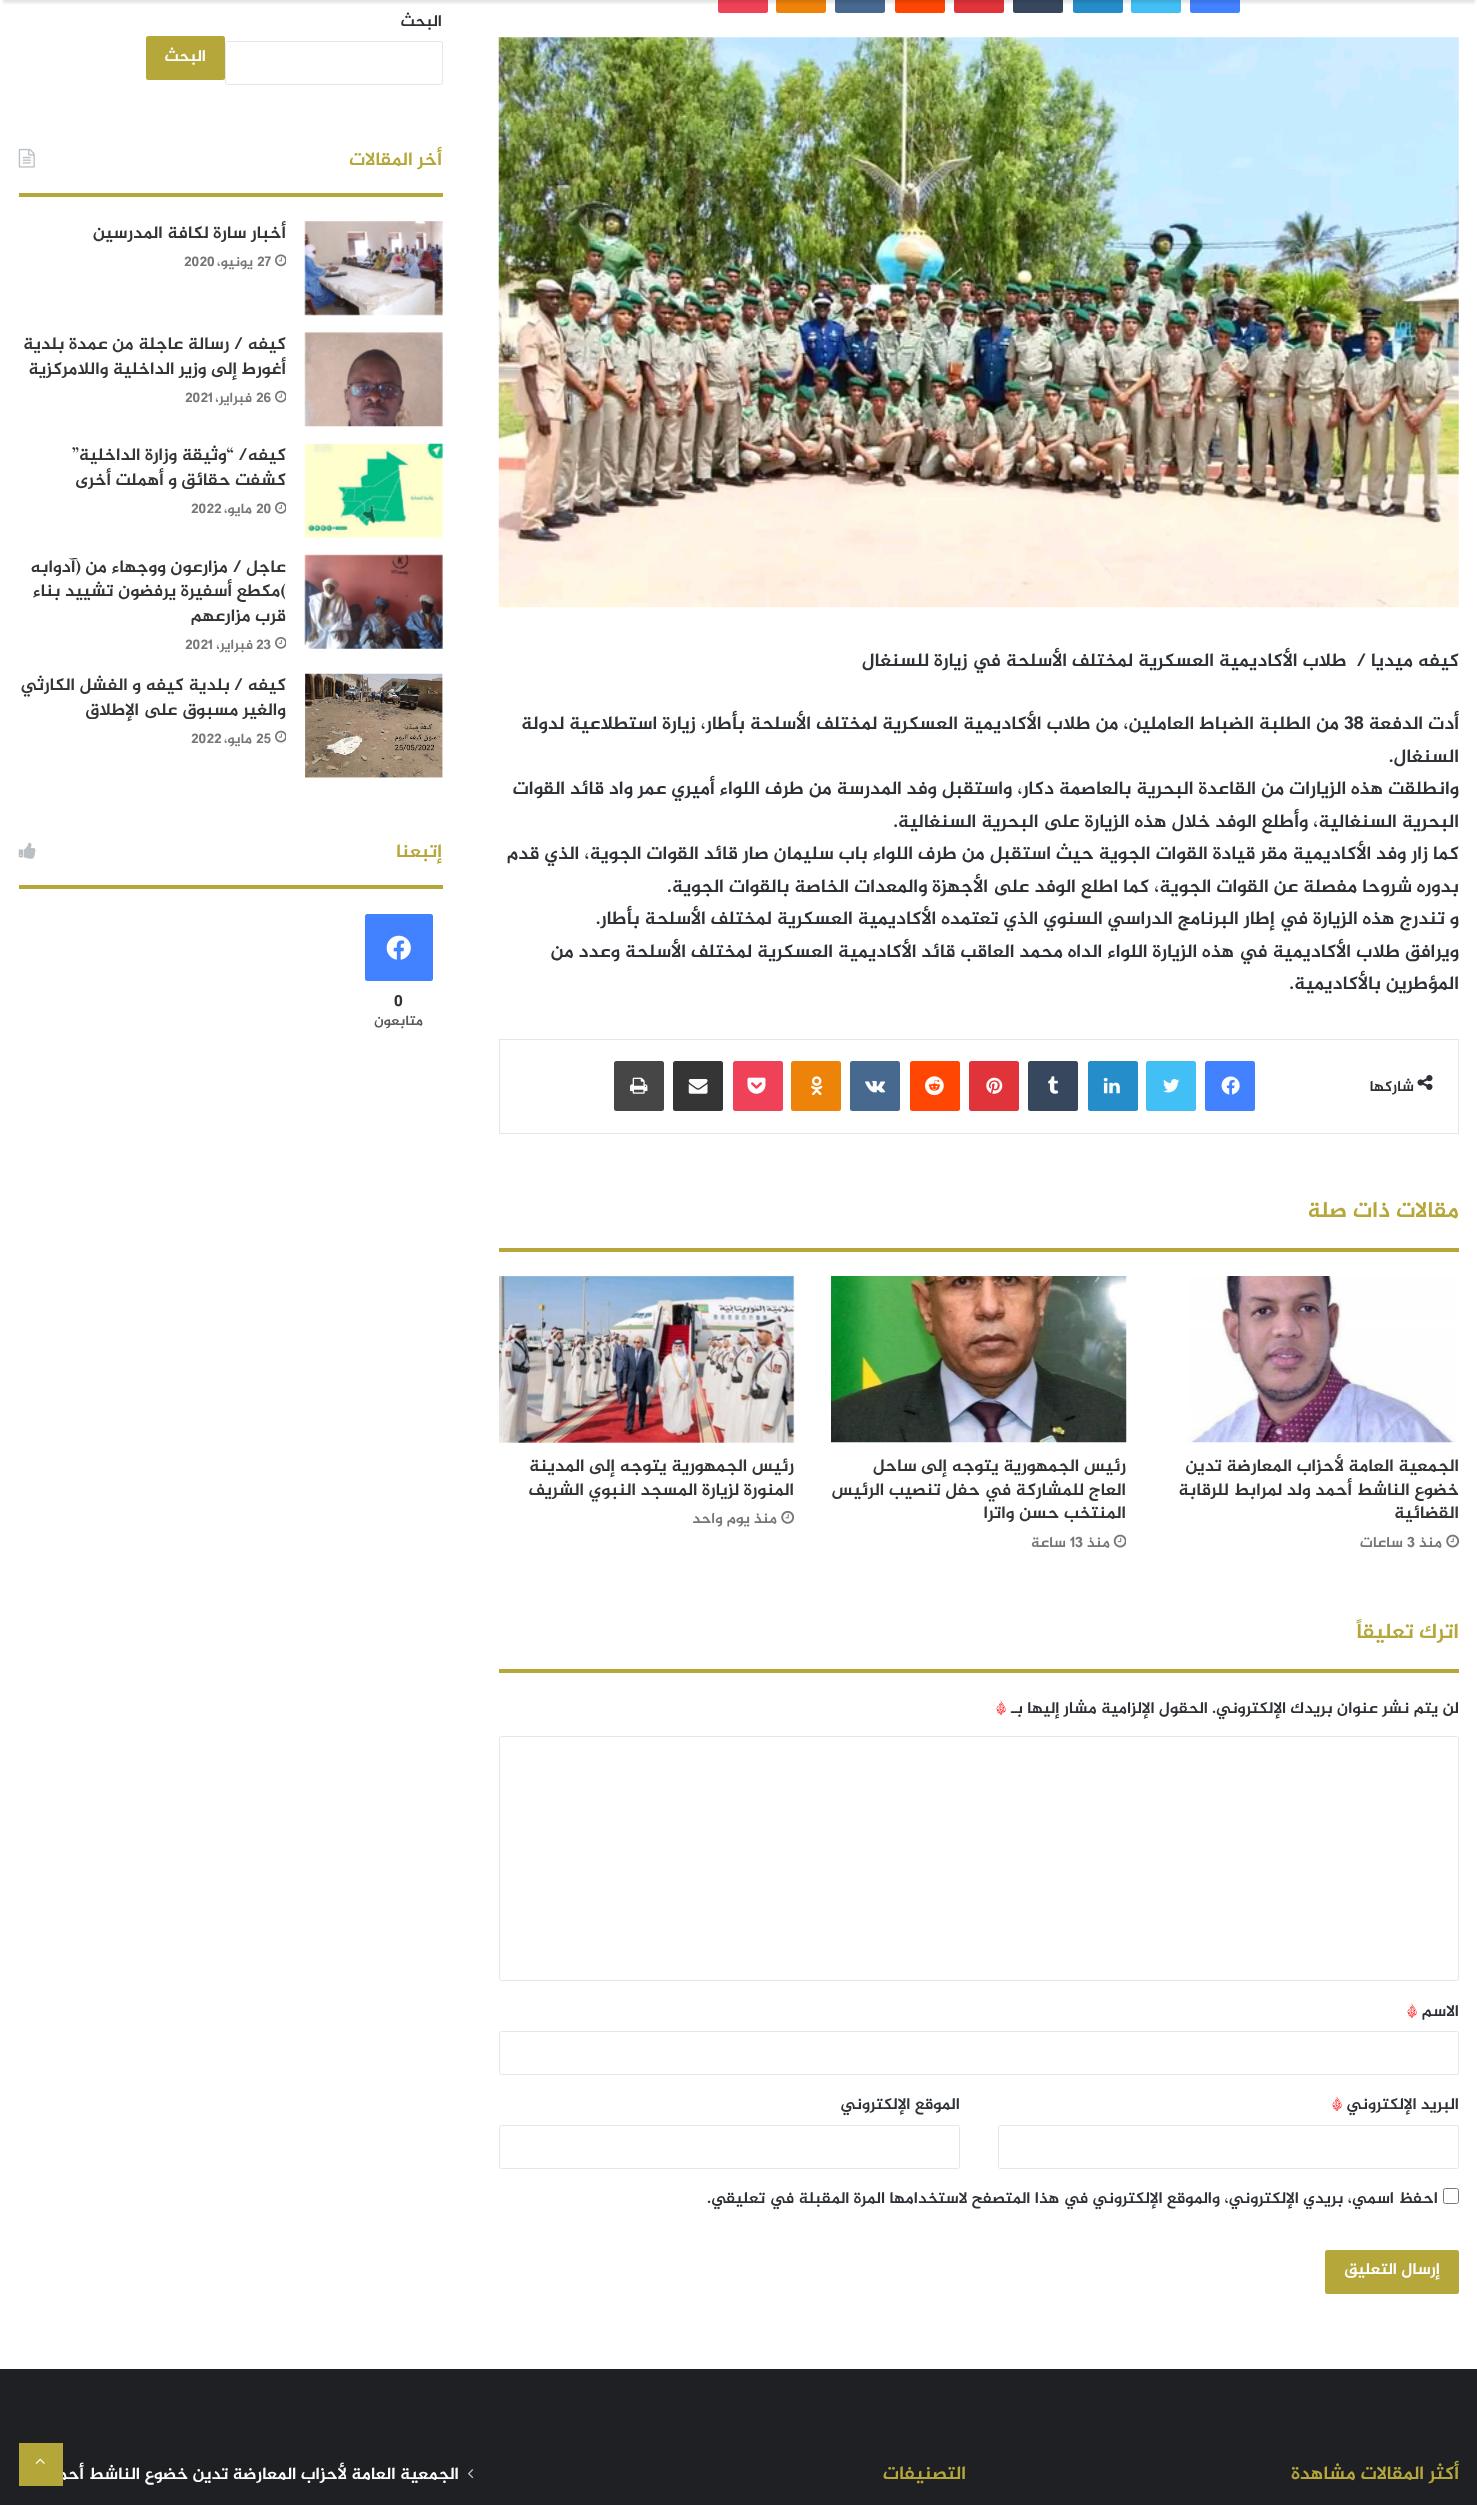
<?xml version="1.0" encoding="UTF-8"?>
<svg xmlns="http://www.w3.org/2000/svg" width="1477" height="2505">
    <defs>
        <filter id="blur1" x="-50%" y="-200%" width="200%" height="500%"><feGaussianBlur stdDeviation="1"/></filter>
    </defs>
    <rect width="100%" height="100%" fill="#FFFFFF"/>
    <rect x="1190" y="-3" width="50" height="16" rx="2.5" fill="#4281FF"/>
    <rect x="1131" y="-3" width="50" height="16" rx="2.5" fill="#42C0F5"/>
    <rect x="1073" y="-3" width="50" height="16" rx="2.5" fill="#258DC9"/>
    <rect x="1013" y="-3" width="50" height="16" rx="2.5" fill="#37485E"/>
    <rect x="954" y="-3" width="50" height="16" rx="2.5" fill="#E1333A"/>
    <rect x="895" y="-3" width="50" height="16" rx="2.5" fill="#FF4703"/>
    <rect x="835" y="-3" width="50" height="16" rx="2.5" fill="#47688F"/>
    <rect x="776" y="-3" width="50" height="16" rx="2.5" fill="#EE830A"/>
    <rect x="718" y="-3" width="50" height="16" rx="2.5" fill="#EF4258"/>
    <rect x="3" y="-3" width="1472" height="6" fill="#000000" fill-opacity="0.1" filter="url(#blur1)"/>
    <text x="442" y="26" font-family="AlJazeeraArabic" font-size="16.25" font-weight="700" direction="rtl" fill="#2E3136">البحث</text>
    <rect x="225.5" y="41.5" width="217" height="43" rx="2" fill="none" stroke="#E6E6E6"/>
    <rect x="146" y="36" width="79" height="44" rx="2.5" fill="#B6A73B"/>
    <text x="206" y="61" font-family="AlJazeeraArabic" font-size="16.25" font-weight="700" direction="rtl" fill="#FFFFFF">البحث</text>
    <rect x="19" y="193" width="424" height="4" fill="#B6A73B"/>
    <text x="442" y="165" font-family="AlJazeeraArabic" font-size="18.75" font-weight="700" direction="rtl" fill="#B6A73B">أخر المقالات</text>
    <image x="18" y="148" width="17" height="20" href="img_01.png"/>
    <image x="304" y="221" width="139" height="95" href="img_02.png"/>
    <text x="286" y="238" font-family="AlJazeeraArabic" font-size="17.5" font-weight="700" direction="rtl" fill="#353535">أخبار سارة لكافة المدرسين</text>
    <image x="275" y="254" width="11" height="13" href="img_03.png"/>
    <text x="257" y="266" font-family="AlJazeeraArabic" font-size="14" font-weight="700" fill="#777777">27</text>
    <text x="253" y="266" font-family="AlJazeeraArabic" font-size="14" font-weight="700" direction="rtl" fill="#777777">يونيو،</text>
    <text x="184" y="266" font-family="AlJazeeraArabic" font-size="14" font-weight="700" fill="#777777">2020</text>
    <image x="304" y="332" width="139" height="95" href="img_04.png"/>
    <text font-family="AlJazeeraArabic" font-size="17.5" font-weight="700" direction="rtl" fill="#353535">
        <tspan x="286" y="349">كيفه / رسالة عاجلة من عمدة بلدية</tspan>
        <tspan x="286" y="374">أغورط إلى وزير الداخلية واللامركزية</tspan>
    </text>
    <image x="275" y="390" width="11" height="13" href="img_05.png"/>
    <text x="256" y="402" font-family="AlJazeeraArabic" font-size="14" font-weight="700" fill="#777777">26</text>
    <text x="252" y="402" font-family="AlJazeeraArabic" font-size="14" font-weight="700" direction="rtl" fill="#777777">فبراير،</text>
    <text x="185" y="402" font-family="AlJazeeraArabic" font-size="14" font-weight="700" fill="#777777">2021</text>
    <image x="304" y="443" width="139" height="95" href="img_06.png"/>
    <text x="286" y="460" font-family="AlJazeeraArabic" font-size="17.5" font-weight="700" direction="rtl" fill="#353535">كيفه/</text>
    <text x="234" y="460" font-family="AlJazeeraArabic" font-size="17.5" font-weight="700" direction="rtl" fill="#353535">“وثيقة وزارة الداخلية”</text>
    <text x="286" y="485" font-family="AlJazeeraArabic" font-size="17.5" font-weight="700" direction="rtl" fill="#353535">كشفت حقائق و أهملت أخرى</text>
    <image x="275" y="502" width="11" height="12" href="img_07.png"/>
    <text x="256" y="513" font-family="AlJazeeraArabic" font-size="14" font-weight="700" fill="#777777">20</text>
    <text x="252" y="513" font-family="AlJazeeraArabic" font-size="14" font-weight="700" direction="rtl" fill="#777777">مايو،</text>
    <text x="191" y="513" font-family="AlJazeeraArabic" font-size="14" font-weight="700" fill="#777777">2022</text>
    <image x="304" y="554" width="139" height="95" href="img_08.png"/>
    <text font-family="AlJazeeraArabic" font-size="17.5" font-weight="700" direction="rtl" fill="#353535">
        <tspan x="286" y="572">عاجل / مزارعون ووجهاء من (آدوابه</tspan>
        <tspan x="286" y="596">)مكطع أسفيرة يرفضون تشييد بناء</tspan>
        <tspan x="286" y="621">قرب مزارعهم</tspan>
    </text>
    <image x="275" y="637" width="11" height="12" href="img_07.png"/>
    <text x="256" y="649" font-family="AlJazeeraArabic" font-size="14" font-weight="700" fill="#777777">23</text>
    <text x="253" y="649" font-family="AlJazeeraArabic" font-size="14" font-weight="700" direction="rtl" fill="#777777">فبراير،</text>
    <text x="185" y="649" font-family="AlJazeeraArabic" font-size="14" font-weight="700" fill="#777777">2021</text>
    <image x="305" y="673" width="138" height="105" href="img_09.png"/>
    <text x="286" y="690" font-family="AlJazeeraArabic" font-size="17.5" font-weight="700" direction="rtl" fill="#353535">كيفه /</text>
    <text x="230" y="690" font-family="AlJazeeraArabic" font-size="17.5" font-weight="700" direction="rtl" fill="#353535">بلدية كيفه و الفشل الكارثي</text>
    <text x="286" y="715" font-family="AlJazeeraArabic" font-size="17.5" font-weight="700" direction="rtl" fill="#353535">والغير مسبوق على الإطلاق</text>
    <image x="275" y="730" width="11" height="13" href="img_05.png"/>
    <text x="256" y="743" font-family="AlJazeeraArabic" font-size="14" font-weight="700" fill="#777777">25</text>
    <text x="252" y="743" font-family="AlJazeeraArabic" font-size="14" font-weight="700" direction="rtl" fill="#777777">مايو،</text>
    <text x="191" y="743" font-family="AlJazeeraArabic" font-size="14" font-weight="700" fill="#777777">2022</text>
    <rect x="19" y="885" width="424" height="4" fill="#B6A73B"/>
    <text x="442" y="857" font-family="AlJazeeraArabic" font-size="18.75" font-weight="700" direction="rtl" fill="#B6A73B">إتبعنا</text>
    <image x="18" y="842" width="18" height="17" href="img_10.png"/>
    <rect x="365" y="914" width="68" height="67" rx="2.5" fill="#4281FF"/>
    <image x="386" y="935" width="25" height="25" href="img_11.png"/>
    <text x="394" y="1006" font-family="AlJazeeraArabic" font-size="16.25" font-weight="700" fill="#2E3136">0</text>
    <text x="423" y="1025" font-family="AlJazeeraArabic" font-size="14" font-weight="700" direction="rtl" fill="#585A5E">متابعون</text>
    <image x="498" y="37" width="961" height="571" href="img_12.png"/>
    <text x="1459" y="666" font-family="AlJazeeraArabic" font-size="18.75" font-weight="700" direction="rtl" fill="#2E3136" xml:space="preserve">كيفه ميديا /  طلاب الأكاديمية العسكرية لمختلف الأسلحة في زيارة للسنغال</text>
    <text x="1459" y="729" font-family="AlJazeeraArabic" font-size="18.75" font-weight="700" direction="rtl" fill="#2E3136">أدت الدفعة</text>
    <text x="1344" y="729" font-family="AlJazeeraArabic" font-size="18.75" font-weight="700" fill="#2E3136">38</text>
    <text x="1339" y="729" font-family="AlJazeeraArabic" font-size="18.75" font-weight="700" direction="rtl" fill="#2E3136">من الطلبة الضباط العاملين، من طلاب الأكاديمية العسكرية لمختلف الأسلحة بأطار، زيارة استطلاعية لدولة</text>
    <text font-family="AlJazeeraArabic" font-size="18.75" font-weight="700" direction="rtl" fill="#2E3136">
        <tspan x="1459" y="762">السنغال.</tspan>
        <tspan x="1459" y="794">وانطلقت هذه الزيارات من القاعدة البحرية بالعاصمة دكار، واستقبل وفد المدرسة من طرف اللواء أميري عمر واد قائد القوات</tspan>
        <tspan x="1459" y="827">البحرية السنغالية، وأطلع الوفد خلال هذه الزيارة على البحرية السنغالية.</tspan>
        <tspan x="1459" y="859">كما زار وفد الأكاديمية مقر قيادة القوات الجوية حيث استقبل من طرف اللواء باب سليمان صار قائد القوات الجوية، الذي قدم</tspan>
        <tspan x="1459" y="892">بدوره شروحا مفصلة عن القوات الجوية، كما اطلع الوفد على الأجهزة والمعدات الخاصة بالقوات الجوية.</tspan>
        <tspan x="1459" y="924">و تندرج هذه الزيارة في إطار البرنامج الدراسي السنوي الذي تعتمده الأكاديمية العسكرية لمختلف الأسلحة بأطار.</tspan>
        <tspan x="1459" y="957">ويرافق طلاب الأكاديمية في هذه الزيارة اللواء الداه محمد العاقب قائد الأكاديمية العسكرية لمختلف الأسلحة وعدد من</tspan>
        <tspan x="1459" y="989">المؤطرين بالأكاديمية.</tspan>
    </text>
    <rect x="499.5" y="1039.5" width="959" height="94" fill="none" stroke="#E6E6E6"/>
    <image x="1417" y="1075" width="16" height="15" href="img_13.png"/>
    <text x="1414" y="1091" font-family="AlJazeeraArabic" font-size="15" font-weight="700" direction="rtl" fill="#2E3136">شاركها</text>
    <rect x="1205" y="1061" width="50" height="50" rx="2.5" fill="#4281FF"/>
    <image x="1221" y="1076" width="19" height="19" href="img_14.png"/>
    <rect x="1146" y="1061" width="50" height="50" rx="2.5" fill="#42C0F5"/>
    <image x="1163" y="1079" width="17" height="14" href="img_15.png"/>
    <rect x="1088" y="1061" width="50" height="50" rx="2.5" fill="#258DC9"/>
    <image x="1103" y="1077" width="17" height="17" href="img_16.png"/>
    <rect x="1028" y="1061" width="50" height="50" rx="2.5" fill="#37485E"/>
    <image x="1048" y="1076" width="11" height="18" href="img_17.png"/>
    <rect x="969" y="1061" width="50" height="50" rx="2.5" fill="#E1333A"/>
    <image x="986" y="1077" width="17" height="17" href="img_18.png"/>
    <rect x="910" y="1061" width="50" height="50" rx="2.5" fill="#FF4703"/>
    <image x="925" y="1076" width="19" height="20" href="img_19.png"/>
    <rect x="850" y="1061" width="50" height="50" rx="2.5" fill="#47688F"/>
    <image x="865" y="1080" width="21" height="13" href="img_20.png"/>
    <rect x="791" y="1061" width="50" height="50" rx="2.5" fill="#EE830A"/>
    <image x="811" y="1076" width="12" height="20" href="img_21.png"/>
    <rect x="733" y="1061" width="50" height="50" rx="2.5" fill="#EF4258"/>
    <image x="747" y="1077" width="19" height="17" href="img_22.png"/>
    <rect x="673" y="1061" width="50" height="50" rx="2.5" fill="#353535"/>
    <image x="688" y="1079" width="20" height="15" href="img_23.png"/>
    <rect x="614" y="1061" width="50" height="50" rx="2.5" fill="#464646"/>
    <image x="630" y="1077" width="18" height="17" href="img_24.png"/>
    <rect x="499" y="1248" width="960" height="4" fill="#B6A73B"/>
    <text x="1459" y="1217" font-family="AlJazeeraArabic" font-size="22.5" font-weight="700" direction="rtl" fill="#B6A73B">مقالات ذات صلة</text>
    <image x="1188" y="1276" width="268" height="167" href="img_25.png"/>
    <text font-family="AlJazeeraArabic" font-size="17.5" font-weight="700" direction="rtl" fill="#353535">
        <tspan x="1459" y="1471">الجمعية العامة لأحزاب المعارضة تدين</tspan>
        <tspan x="1459" y="1495">خضوع الناشط أحمد ولد لمرابط للرقابة</tspan>
        <tspan x="1459" y="1518">القضائية</tspan>
    </text>
    <image x="1446" y="1534" width="13" height="14" href="img_26.png"/>
    <text x="1442" y="1547" font-family="AlJazeeraArabic" font-size="15" font-weight="700" direction="rtl" fill="#777777">منذ</text>
    <text x="1407" y="1547" font-family="AlJazeeraArabic" font-size="15" font-weight="700" fill="#777777">3</text>
    <text x="1403" y="1547" font-family="AlJazeeraArabic" font-size="15" font-weight="700" direction="rtl" fill="#777777">ساعات</text>
    <image x="831" y="1276" width="296" height="167" href="img_27.png"/>
    <text font-family="AlJazeeraArabic" font-size="17.5" font-weight="700" direction="rtl" fill="#353535">
        <tspan x="1126" y="1471">رئيس الجمهورية يتوجه إلى ساحل</tspan>
        <tspan x="1126" y="1495">العاج للمشاركة في حفل تنصيب الرئيس</tspan>
        <tspan x="1126" y="1518">المنتخب حسن واترا</tspan>
    </text>
    <image x="1113" y="1534" width="13" height="14" href="img_28.png"/>
    <text x="1110" y="1547" font-family="AlJazeeraArabic" font-size="15" font-weight="700" direction="rtl" fill="#777777">منذ</text>
    <text x="1070" y="1547" font-family="AlJazeeraArabic" font-size="15" font-weight="700" fill="#777777">13</text>
    <text x="1066" y="1547" font-family="AlJazeeraArabic" font-size="15" font-weight="700" direction="rtl" fill="#777777">ساعة</text>
    <image x="499" y="1276" width="296" height="167" href="img_29.png"/>
    <text font-family="AlJazeeraArabic" font-size="17.5" font-weight="700" direction="rtl" fill="#353535">
        <tspan x="794" y="1471">رئيس الجمهورية يتوجه إلى المدينة</tspan>
        <tspan x="794" y="1495">المنورة لزيارة المسجد النبوي الشريف</tspan>
    </text>
    <image x="781" y="1510" width="13" height="14" href="img_30.png"/>
    <text x="777" y="1523" font-family="AlJazeeraArabic" font-size="15" font-weight="700" direction="rtl" fill="#777777">منذ يوم واحد</text>
    <rect x="499" y="1669" width="960" height="4" fill="#B6A73B"/>
    <text x="1459" y="1638" font-family="AlJazeeraArabic" font-size="21.25" font-weight="700" direction="rtl" fill="#B6A73B">اترك تعليقاً</text>
    <text x="1459" y="1713" font-family="AlJazeeraArabic" font-size="16.25" font-weight="700" direction="rtl" fill="#2E3136">لن يتم نشر عنوان بريدك الإلكتروني.</text>
    <text x="1208" y="1713" font-family="AlJazeeraArabic" font-size="16.25" font-weight="700" direction="rtl" fill="#2E3136">الحقول الإلزامية مشار إليها بـ</text>
    <text x="996" y="1713" font-family="AlJazeeraArabic" font-size="16.25" font-weight="700" fill="#FF0303">*</text>
    <rect x="499.5" y="1736.5" width="959" height="244" rx="2" fill="none" stroke="#E6E6E6"/>
    <text x="1459" y="2016" font-family="AlJazeeraArabic" font-size="16.25" font-weight="700" direction="rtl" fill="#2E3136">الاسم</text>
    <text x="1407" y="2016" font-family="AlJazeeraArabic" font-size="16.25" font-weight="700" fill="#FF0303">*</text>
    <rect x="499.5" y="2031.5" width="959" height="43" rx="2" fill="none" stroke="#E6E6E6"/>
    <text x="1459" y="2109" font-family="AlJazeeraArabic" font-size="16.25" font-weight="700" direction="rtl" fill="#2E3136">البريد الإلكتروني</text>
    <text x="1332" y="2109" font-family="AlJazeeraArabic" font-size="16.25" font-weight="700" fill="#FF0303">*</text>
    <rect x="998.5" y="2125.5" width="460" height="43" rx="2" fill="none" stroke="#E6E6E6"/>
    <text x="960" y="2109" font-family="AlJazeeraArabic" font-size="16.25" font-weight="700" direction="rtl" fill="#2E3136">الموقع الإلكتروني</text>
    <rect x="499.5" y="2125.5" width="460" height="43" rx="2" fill="none" stroke="#E6E6E6"/>
    <rect x="1443.5" y="2188.5" width="15" height="15" rx="2" fill="none" stroke="#777777"/>
    <text x="1438" y="2203" font-family="AlJazeeraArabic" font-size="16.25" font-weight="700" direction="rtl" fill="#2E3136">احفظ اسمي، بريدي الإلكتروني، والموقع الإلكتروني في هذا المتصفح لاستخدامها المرة المقبلة في تعليقي.</text>
    <rect x="1325" y="2250" width="134" height="44" rx="2.5" fill="#B6A73B"/>
    <text x="1440" y="2274" font-family="AlJazeeraArabic" font-size="16.25" font-weight="700" direction="rtl" fill="#FFFFFF">إرسال التعليق</text>
    <rect x="0" y="2369" width="1477" height="136" fill="#1F2024"/>
    <text x="459" y="2479" font-family="AlJazeeraArabic" font-size="17.05" font-weight="700" direction="rtl" fill="#FFFFFF">الجمعية العامة لأحزاب المعارضة تدين خضوع الناشط أحمد ولد</text>
    <rect x="19" y="2443" width="44" height="43" fill="#B5A639"/>
    <image x="35" y="2458" width="10" height="6" href="img_31.png"/>
    <text x="1459" y="2479" font-family="AlJazeeraArabic" font-size="18.75" font-weight="700" direction="rtl" fill="#B6A73B">أكثر المقالات مشاهدة</text>
    <text x="966" y="2479" font-family="AlJazeeraArabic" font-size="18.75" font-weight="700" direction="rtl" fill="#B6A73B">التصنيفات</text>
    <image x="467" y="2469" width="7" height="10" href="img_32.png"/>
</svg>
